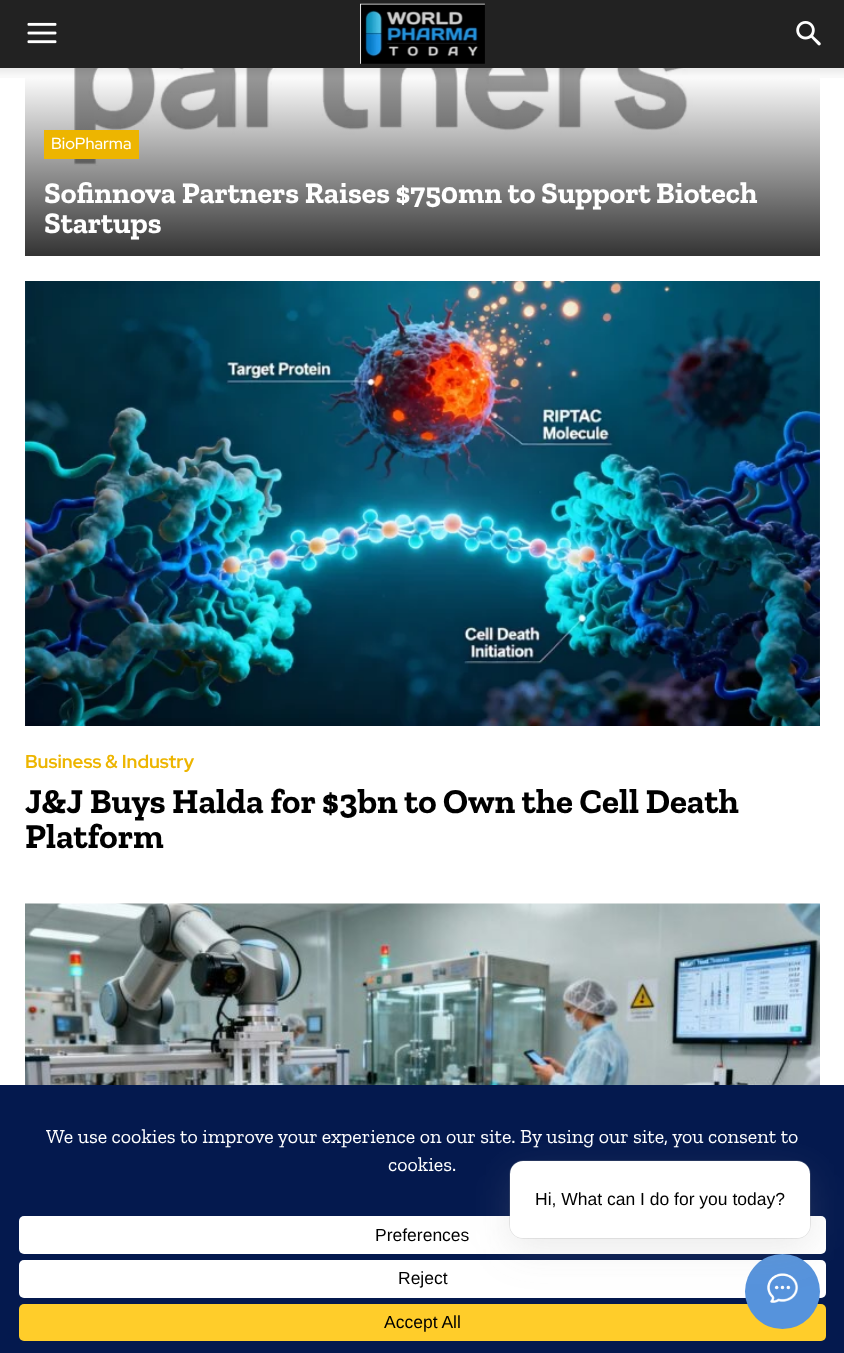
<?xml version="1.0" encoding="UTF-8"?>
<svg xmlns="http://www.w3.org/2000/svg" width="844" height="1353">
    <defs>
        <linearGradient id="g1" gradientUnits="userSpaceOnUse" x1="423" y1="256" x2="423" y2="-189"><stop offset="0" stop-color="#000000" stop-opacity="0.8"/><stop offset="0.41" stop-color="#000000" stop-opacity="0"/><stop offset="1" stop-color="#000000" stop-opacity="0"/></linearGradient>
        <filter id="blur1" x="-50%" y="-200%" width="200%" height="500%"><feGaussianBlur stdDeviation="19"/></filter>
    </defs>
    <rect width="100%" height="100%" fill="#FFFFFF"/>
    <rect x="0" y="0" width="844" height="68" fill="#222222"/>
    <image x="27" y="22" width="30" height="22" href="img_01.png"/>
    <image x="360" y="3" width="125" height="61" href="img_02.png"/>
    <image x="796" y="21" width="25" height="25" href="img_03.png"/>
    <image x="71" y="68" width="707" height="98" href="img_05.png"/>
    <image x="0" y="68" width="844" height="10" href="img_04.png"/>
    <rect x="25" y="78" width="795" height="178" fill="url(#g1)"/>
    <rect x="44" y="130" width="95" height="29" fill="#EDB500"/>
    <text x="51" y="149" font-family="Red Hat Display" font-size="16.25" font-weight="500" fill="#FFFFFF">BioPharma</text>
    <text font-family="Zilla Slab" font-size="30" font-weight="700" fill="#FFFFFF">
        <tspan x="44" y="203">Sofinnova Partners Raises $750mn to Support Biotech</tspan>
        <tspan x="44" y="233">Startups</tspan>
    </text>
    <image x="25" y="281" width="795" height="445" href="img_06.png"/>
    <text x="25" y="768" font-family="Red Hat Display" font-size="18.75" font-weight="700" fill="#EDB500">Business &amp; Industry</text>
    <text font-family="Zilla Slab" font-size="35" font-weight="700" fill="#000000">
        <tspan x="25" y="813">J&amp;J Buys Halda for $3bn to Own the Cell Death</tspan>
        <tspan x="25" y="848">Platform</tspan>
    </text>
    <image x="25" y="903" width="795" height="182" href="img_07.png"/>
    <rect x="0" y="1085" width="844" height="268" fill="#04194E"/>
    <text x="46" y="1143" font-family="Zilla Slab" font-size="20" fill="#FFFFFF">We use cookies to improve your experience on our site. By using our site, you consent to</text>
    <text x="388" y="1171" font-family="Zilla Slab" font-size="20" fill="#FFFFFF">cookies.</text>
    <rect x="19" y="1216" width="807" height="38" rx="5" fill="#FFFFFF"/>
    <text x="375" y="1241" font-family="Liberation Sans" font-size="17.5" fill="#000000">Preferences</text>
    <rect x="19" y="1260" width="807" height="38" rx="5" fill="#FFFFFF"/>
    <text x="398" y="1284" font-family="Liberation Sans" font-size="17.5" fill="#000000">Reject</text>
    <rect x="19" y="1304" width="807" height="37" rx="5" fill="#FFCD2A"/>
    <text x="384" y="1328" font-family="Liberation Sans" font-size="17.5" fill="#000000">Accept All</text>
    <rect x="509.5" y="1160.5" width="301" height="78" rx="13.5" fill="none" stroke="#969696" stroke-opacity="0.2"/>
    <circle cx="782.5" cy="1291.5" r="37.5" fill="#5693DC"/>
    <image x="767" y="1273" width="32" height="30" href="img_08.png"/>
    <rect x="510" y="1174" width="300" height="76" rx="13" fill="#969696" fill-opacity="0.2" filter="url(#blur1)"/>
    <rect x="510" y="1161" width="300" height="77" rx="13" fill="#FFFFFF"/>
    <text x="535" y="1205" font-family="Liberation Sans" font-size="17.5" fill="#000000">Hi, What can I do for you today?</text>
</svg>
